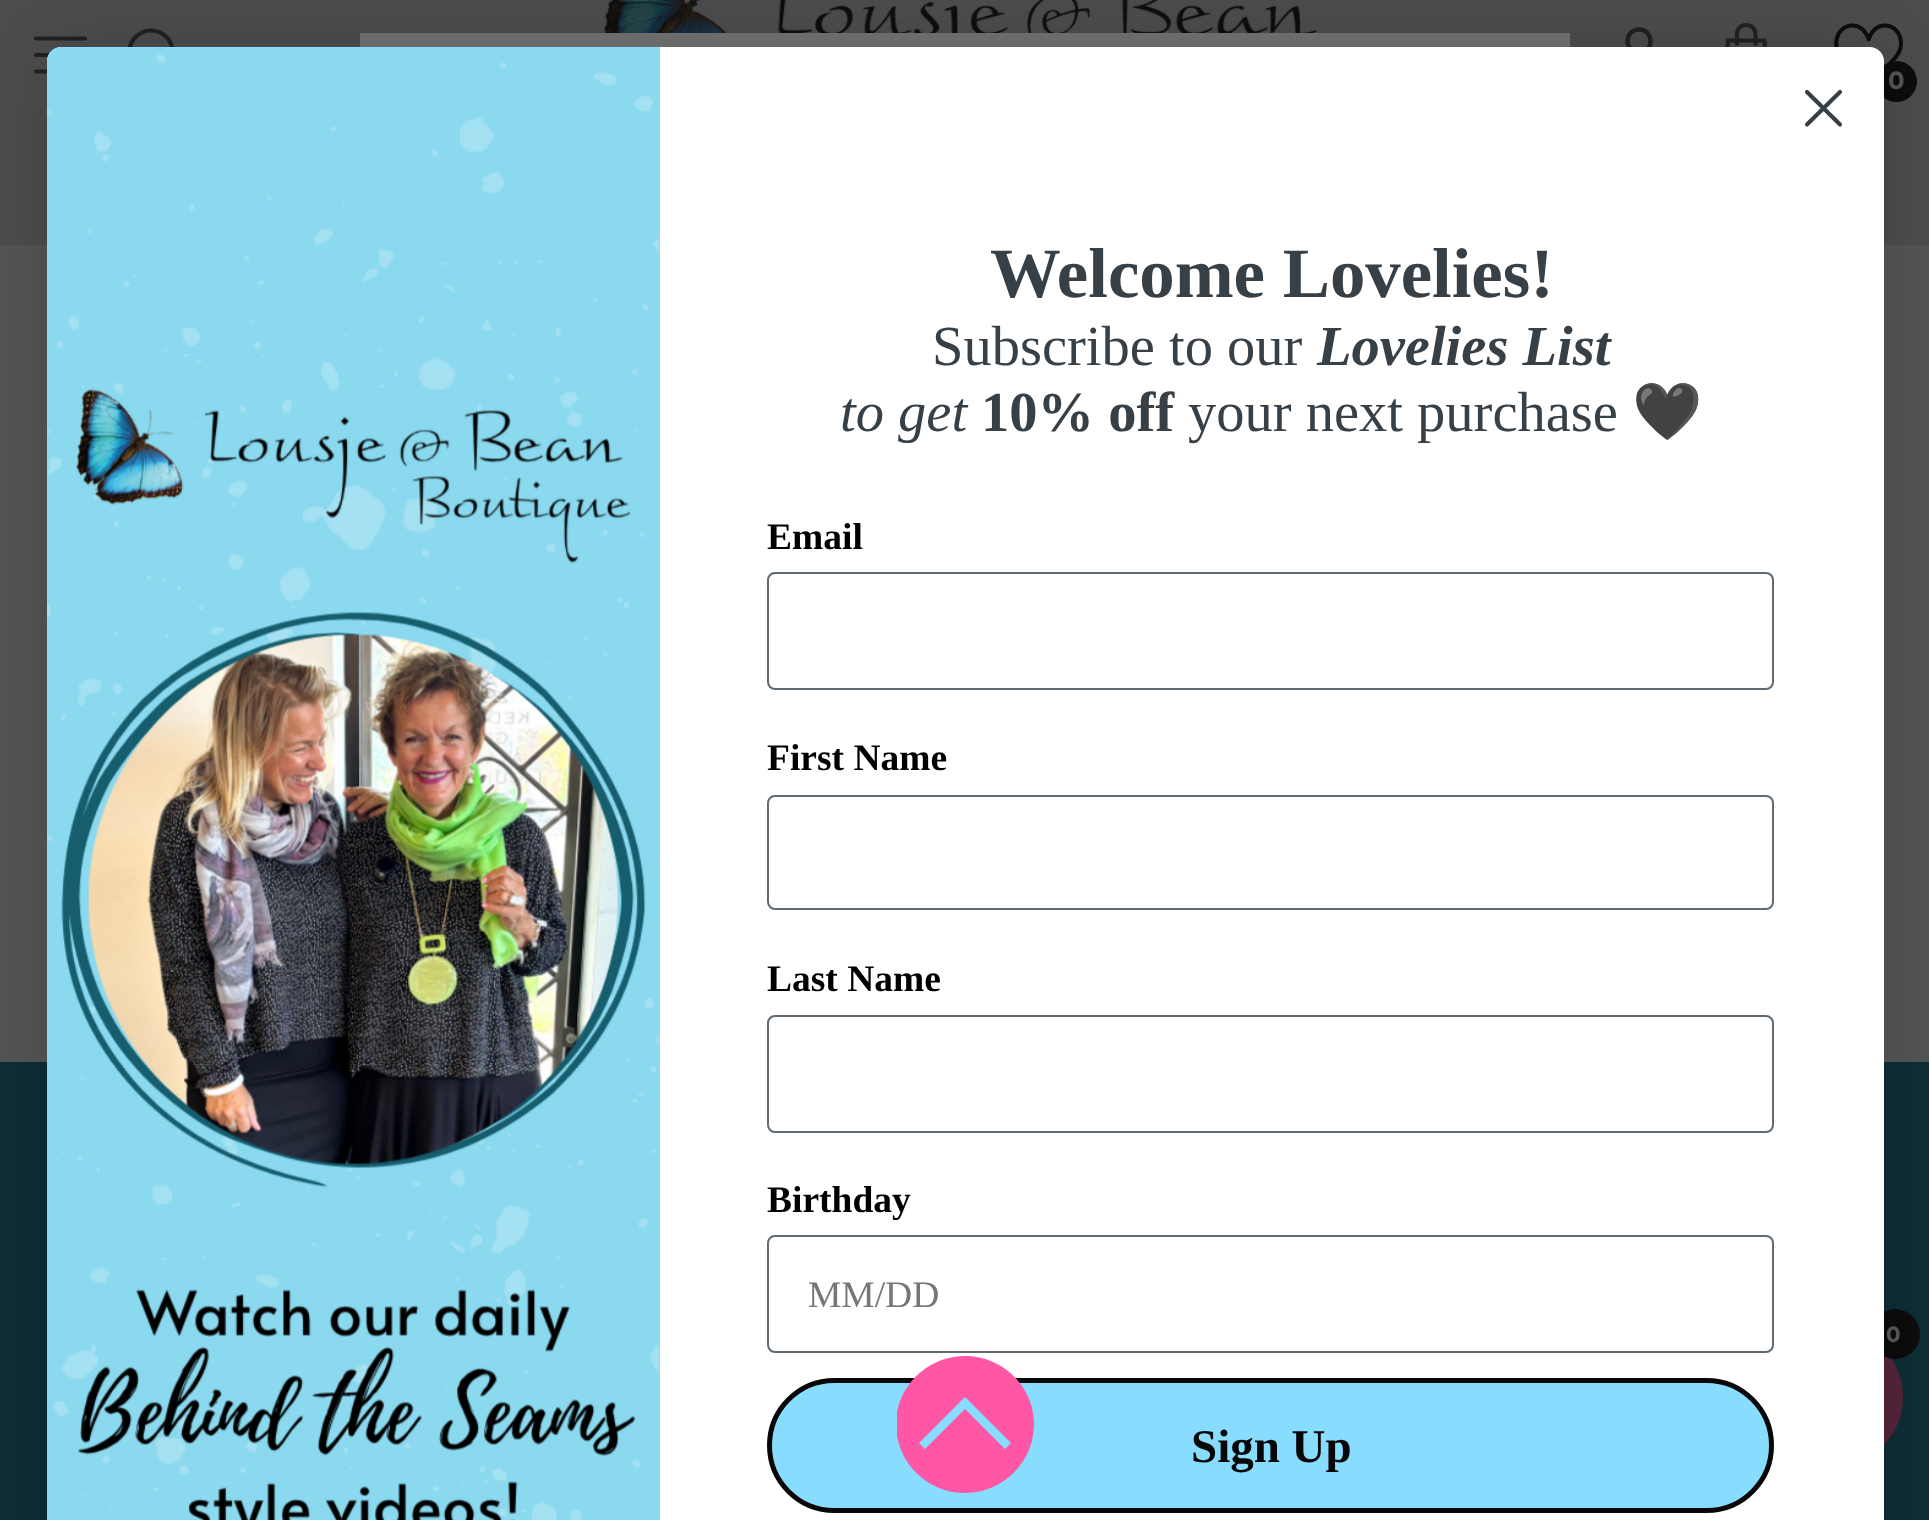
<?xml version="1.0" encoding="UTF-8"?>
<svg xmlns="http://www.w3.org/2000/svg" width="1929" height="1520">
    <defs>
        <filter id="blur1" x="-50%" y="-200%" width="200%" height="500%"><feGaussianBlur stdDeviation="35.5"/></filter>
        <clipPath id="clip1"><rect x="809" y="1273" width="965" height="44"/></clipPath>
        <clipPath id="clip2"><rect x="897" y="1356" width="137" height="137"/></clipPath>
    </defs>
    <rect width="100%" height="100%" fill="#545454"/>
    <rect x="0" y="0" width="1929" height="245" fill="#4A4C4D"/>
    <rect x="360" y="33" width="1210" height="14" fill="#727272"/>
    <image x="603" y="0" width="715" height="33" href="img_01.png"/>
    <path d="M 36 55 H 85 M 36 38.5 H 85 M 36 71.5 H 85" fill="none" stroke="#222020" stroke-width="4.1" stroke-linecap="round" stroke-linejoin="round"/>
    <circle cx="151" cy="52" r="21.5" fill="none" stroke="#222020" stroke-width="4.1"/>
    <path d="M 1639 27.5 C 1657 27.5 1657 55 1639 55 C 1621 55 1621 27.5 1639 27.5 Z M 1639 31.5 C 1626.5 31.5 1626 50.5 1639 51 C 1651.5 51.5 1652.5 31.5 1639 31.5 Z" fill="#222020" fill-rule="evenodd"/>
    <circle cx="1639" cy="41" r="11.5" fill="none" stroke="#222020" stroke-width="4.1"/>
    <path d="M 1755.5 45.5 V 34 C 1755.5 29 1751.5 25 1746 25 C 1741 25 1737 29 1737 34 V 45.5 M 1728 40.5 H 1764.5 L 1767.5 77.5 H 1725 Z" fill="none" stroke="#222020" stroke-width="4.1"/>
    <image x="1834" y="23" width="69" height="43" href="img_02.png"/>
    <circle cx="1896.5" cy="81.5" r="20.5" fill="#0C0C0C"/>
    <text x="1888" y="89" font-family="Jost" font-size="25" font-weight="700" fill="#545454">0</text>
    <rect x="0" y="1062" width="1929" height="458" fill="#0E2D35"/>
    <rect x="1766" y="1328" width="137" height="138" rx="68.5" fill="#54243A"/>
    <circle cx="1895" cy="1334" r="25" fill="#0C0C0C"/>
    <rect x="47" y="47" width="1837" height="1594" rx="14" fill="#000000" fill-opacity="0.15" filter="url(#blur1)"/>
    <path d="M 61 47 H 1870 C 1877.5 47 1884 53.5 1884 61 V 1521 H 47 V 61 C 47 53.5 53.5 47 61 47 Z" fill="#FFFFFF"/>
    <path d="M 1807 92 L 1840 124.5 M 1807 124.5 L 1840 92 Z" fill="none" stroke="#373F47" stroke-width="4.1" stroke-linecap="round" stroke-linejoin="round"/>
    <path d="M 61 47 H 660 V 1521 H 47 V 61 C 47 53.5 53.5 47 61 47 Z" fill="#88DDFF"/>
    <image x="47" y="48" width="612" height="1472" href="img_03.png"/>
    <text x="990" y="297" font-family="Liberation Serif" font-size="70.75" font-weight="700" fill="#373F47">Welcome Lovelies!</text>
    <text x="932" y="365" font-family="Liberation Serif" font-size="56.5" fill="#373F47">Subscribe to our</text>
    <text x="1317" y="365" font-family="Liberation Serif" font-size="56.5" font-weight="700" font-style="italic" fill="#373F47">Lovelies List</text>
    <text x="840" y="431" font-family="Liberation Serif" font-size="56.5" font-style="italic" fill="#373F47">to get</text>
    <text x="981" y="431" font-family="Liberation Serif" font-size="56.5" font-weight="700" fill="#373F47">10% off</text>
    <text x="1188" y="431" font-family="Liberation Serif" font-size="56.5" fill="#373F47">your next purchase</text>
    <text x="1632" y="431" font-family="Noto Color Emoji" font-size="56.5" fill="#373F47">🖤</text>
    <text x="767" y="549" font-family="Liberation Serif" font-size="37.5" font-weight="700" fill="#000000">Email</text>
    <rect x="768" y="573" width="1005" height="116" rx="7" fill="none" stroke="#606A72" stroke-width="2"/>
    <text x="767" y="770" font-family="Liberation Serif" font-size="37.5" font-weight="700" fill="#000000">First Name</text>
    <rect x="768" y="796" width="1005" height="113" rx="7" fill="none" stroke="#606A72" stroke-width="2"/>
    <text x="767" y="991" font-family="Liberation Serif" font-size="37.5" font-weight="700" fill="#000000">Last Name</text>
    <rect x="768" y="1016" width="1005" height="116" rx="7" fill="none" stroke="#606A72" stroke-width="2"/>
    <text x="767" y="1212" font-family="Liberation Serif" font-size="37.5" font-weight="700" fill="#000000">Birthday</text>
    <rect x="768" y="1236" width="1005" height="116" rx="7" fill="none" stroke="#606A72" stroke-width="2"/>
    <g clip-path="url(#clip1)">
        <text x="808" y="1307" font-family="Liberation Serif" font-size="37.5" fill="#767676">MM/DD</text>
    </g>
    <rect x="769.5" y="1380.5" width="1002" height="130" rx="65" fill="#88DDFF" stroke="#070707" stroke-width="5"/>
    <text x="1191" y="1462" font-family="Liberation Serif" font-size="47" font-weight="700" fill="#070707">Sign Up</text>
    <text x="1886" y="1342" font-family="Jost" font-size="22" font-weight="700" fill="#545454">0</text>
    <g clip-path="url(#clip2)">
        <path d="M 965 1356 C 927 1356 896 1387 896 1424 C 896 1462 927 1493 965 1493 C 1003 1493 1034 1462 1034 1424 C 1034 1387 1003 1356 965 1356 Z M 1005 1449 L 965 1409 L 925 1449 L 919 1443 L 965 1397 L 1011 1443 Z" fill="#FF56A6" fill-rule="evenodd"/>
    </g>
</svg>
